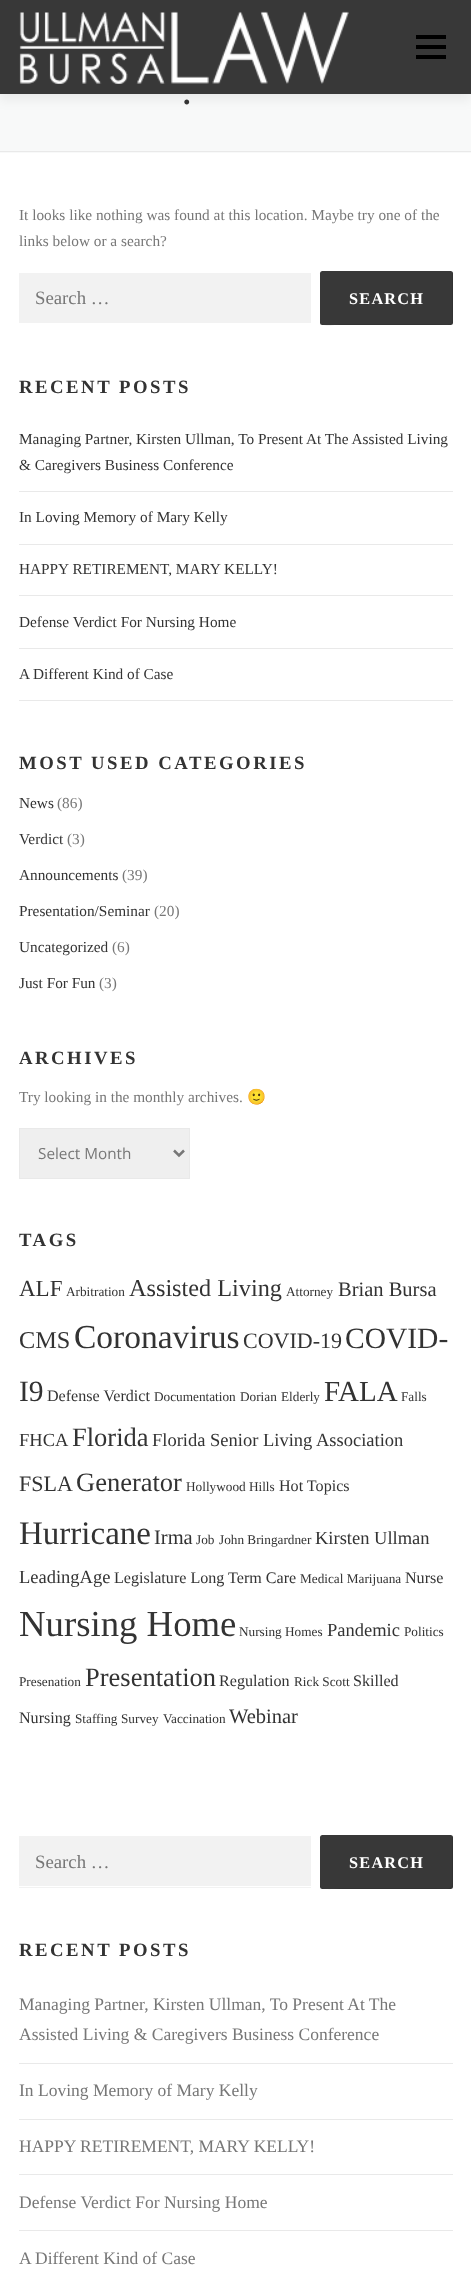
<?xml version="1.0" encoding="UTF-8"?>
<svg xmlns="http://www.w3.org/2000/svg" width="471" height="2280">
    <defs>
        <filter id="blur1" x="-50%" y="-200%" width="200%" height="500%"><feGaussianBlur stdDeviation="6"/></filter>
    </defs>
    <rect width="100%" height="100%" fill="#FFFFFF"/>
    <rect x="0" y="94" width="471" height="59" fill="#F8F9F9"/>
    <rect x="0" y="6" width="471" height="94" fill="#323232" fill-opacity="0.06" filter="url(#blur1)"/>
    <rect x="0" y="0" width="471" height="94" fill="#383838"/>
    <image x="19" y="11" width="330" height="73" href="img_01.png"/>
    <rect x="416" y="45" width="30" height="4" fill="#000000"/>
    <rect x="416" y="35" width="30" height="4" fill="#000000"/>
    <rect x="416" y="55" width="30" height="4" fill="#000000"/>
    <rect x="0" y="151" width="471" height="1" fill="#E9E9E9"/>
    <text x="183" y="104" font-family="Liberation Serif" font-size="30" font-weight="700" letter-spacing="1.25" fill="#333333">.</text>
    <text font-family="Liberation Serif" font-size="15.3" fill="#777777">
        <tspan x="19" y="220">It looks like nothing was found at this location. Maybe try one of the</tspan>
        <tspan x="19" y="246">links below or a search?</tspan>
    </text>
    <rect x="19" y="273" width="292" height="50" fill="#F2F2F2"/>
    <text x="35" y="304" font-family="Liberation Serif" font-size="18.75" fill="#777777">Search …</text>
    <rect x="320" y="271" width="133" height="54" rx="2.5" fill="#383838"/>
    <path d="M 320 321 V 322 C 320 324 321 325 322 325 H 450 C 452 325 453 324 453 322 V 274 C 453 273 453 272 452 271 V 305 C 452 330 457 324 429 324 H 343 C 339 324 320 329 320 321 Z" fill="#000000" fill-opacity="0.1"/>
    <text x="349" y="304" font-family="Liberation Serif" font-size="16.25" font-weight="700" letter-spacing="1.25" fill="#FFFFFF">SEARCH</text>
    <text x="19" y="393" font-family="Liberation Serif" font-size="18.75" font-weight="700" letter-spacing="2.5" fill="#333333">RECENT POSTS</text>
    <rect x="19" y="491" width="434" height="1" fill="#E9E9E9"/>
    <text font-family="Liberation Serif" font-size="15.3" fill="#333333">
        <tspan x="19" y="444">Managing Partner, Kirsten Ullman, To Present At The Assisted Living</tspan>
        <tspan x="19" y="470">&amp; Caregivers Business Conference</tspan>
    </text>
    <rect x="19" y="544" width="434" height="1" fill="#E9E9E9"/>
    <text x="19" y="522" font-family="Liberation Serif" font-size="15.3" fill="#333333">In Loving Memory of Mary Kelly</text>
    <rect x="19" y="595" width="434" height="1" fill="#E9E9E9"/>
    <text x="19" y="574" font-family="Liberation Serif" font-size="15.3" fill="#333333">HAPPY RETIREMENT, MARY KELLY!</text>
    <rect x="19" y="648" width="434" height="1" fill="#E9E9E9"/>
    <text x="19" y="627" font-family="Liberation Serif" font-size="15.3" fill="#333333">Defense Verdict For Nursing Home</text>
    <rect x="19" y="700" width="434" height="1" fill="#E9E9E9"/>
    <text x="19" y="679" font-family="Liberation Serif" font-size="15.3" fill="#333333">A Different Kind of Case</text>
    <text x="19" y="769" font-family="Liberation Serif" font-size="18.75" font-weight="700" letter-spacing="2.5" fill="#333333">MOST USED CATEGORIES</text>
    <text x="19" y="808" font-family="Liberation Serif" font-size="15.3" fill="#333333">News</text>
    <text x="57" y="808" font-family="Liberation Serif" font-size="15.3" fill="#777777">(86)</text>
    <text x="19" y="844" font-family="Liberation Serif" font-size="15.3" fill="#333333">Verdict</text>
    <text x="67" y="844" font-family="Liberation Serif" font-size="15.3" fill="#777777">(3)</text>
    <text x="19" y="880" font-family="Liberation Serif" font-size="15.3" fill="#333333">Announcements</text>
    <text x="122" y="880" font-family="Liberation Serif" font-size="15.3" fill="#777777">(39)</text>
    <text x="19" y="916" font-family="Liberation Serif" font-size="15.3" fill="#333333">Presentation/Seminar</text>
    <text x="154" y="916" font-family="Liberation Serif" font-size="15.3" fill="#777777">(20)</text>
    <text x="19" y="952" font-family="Liberation Serif" font-size="15.3" fill="#333333">Uncategorized</text>
    <text x="112" y="952" font-family="Liberation Serif" font-size="15.3" fill="#777777">(6)</text>
    <text x="19" y="988" font-family="Liberation Serif" font-size="15.3" fill="#333333">Just For Fun</text>
    <text x="99" y="988" font-family="Liberation Serif" font-size="15.3" fill="#777777">(3)</text>
    <text x="19" y="1064" font-family="Liberation Serif" font-size="18.75" font-weight="700" letter-spacing="2.5" fill="#333333">ARCHIVES</text>
    <text x="19" y="1102" font-family="Liberation Serif" font-size="15.3" fill="#777777">Try looking in the monthly archives.</text>
    <text x="247" y="1102" font-family="Noto Color Emoji" font-size="15.3" fill="#777777">🙂</text>
    <rect x="19.5" y="1128.5" width="170" height="50" fill="#EFEFEF" stroke="#E9E9E9"/>
    <path d="M 174 1150.5 L 179 1155.5 L 184 1150.5" fill="none" stroke="#777777" stroke-width="2.5"/>
    <text x="38" y="1159" font-family="Open Sans" font-size="15.3" fill="#777777">Select Month</text>
    <text x="19" y="1246" font-family="Liberation Serif" font-size="18.75" font-weight="700" letter-spacing="2.5" fill="#333333">TAGS</text>
    <text x="19" y="1296" font-family="Liberation Serif" font-size="23" fill="#333333">ALF</text>
    <text x="66" y="1296" font-family="Liberation Serif" font-size="13.25" fill="#333333">Arbitration</text>
    <text x="129" y="1296" font-family="Liberation Serif" font-size="24.25" fill="#333333">Assisted Living</text>
    <text x="286" y="1296" font-family="Liberation Serif" font-size="13.25" fill="#333333">Attorney</text>
    <text x="338" y="1296" font-family="Liberation Serif" font-size="20.5" fill="#333333">Brian Bursa</text>
    <text x="19" y="1348" font-family="Liberation Serif" font-size="24.25" fill="#333333">CMS</text>
    <text x="74" y="1348" font-family="Liberation Serif" font-size="33.5" fill="#333333">Coronavirus</text>
    <text x="243" y="1348" font-family="Liberation Serif" font-size="22" fill="#333333">COVID-19</text>
    <text x="345" y="1348" font-family="Liberation Serif" font-size="29.5" fill="#333333">COVID-</text>
    <text x="19" y="1401" font-family="Liberation Serif" font-size="29.5" fill="#333333">I9</text>
    <text x="47" y="1401" font-family="Liberation Serif" font-size="16.1" fill="#333333">Defense Verdict</text>
    <text x="154" y="1401" font-family="Liberation Serif" font-size="13.25" fill="#333333">Documentation</text>
    <text x="240" y="1401" font-family="Liberation Serif" font-size="13.25" fill="#333333">Dorian</text>
    <text x="281" y="1401" font-family="Liberation Serif" font-size="13.25" fill="#333333">Elderly</text>
    <text x="324" y="1401" font-family="Liberation Serif" font-size="29" fill="#333333">FALA</text>
    <text x="401" y="1401" font-family="Liberation Serif" font-size="13.25" fill="#333333">Falls</text>
    <text x="19" y="1446" font-family="Liberation Serif" font-size="18.5" fill="#333333">FHCA</text>
    <text x="72" y="1446" font-family="Liberation Serif" font-size="26.5" fill="#333333">Florida</text>
    <text x="152" y="1446" font-family="Liberation Serif" font-size="18.5" fill="#333333">Florida Senior Living Association</text>
    <text x="19" y="1491" font-family="Liberation Serif" font-size="22" fill="#333333">FSLA</text>
    <text x="76" y="1491" font-family="Liberation Serif" font-size="26.5" fill="#333333">Generator</text>
    <text x="186" y="1491" font-family="Liberation Serif" font-size="13.25" fill="#333333">Hollywood Hills</text>
    <text x="279" y="1491" font-family="Liberation Serif" font-size="16.1" fill="#333333">Hot Topics</text>
    <text x="19" y="1544" font-family="Liberation Serif" font-size="33" fill="#333333">Hurricane</text>
    <text x="154" y="1544" font-family="Liberation Serif" font-size="20.5" fill="#333333">Irma</text>
    <text x="196" y="1544" font-family="Liberation Serif" font-size="13.25" fill="#333333">Job</text>
    <text x="219" y="1544" font-family="Liberation Serif" font-size="13.25" fill="#333333">John Bringardner</text>
    <text x="315" y="1544" font-family="Liberation Serif" font-size="18.5" fill="#333333">Kirsten Ullman</text>
    <text x="19" y="1583" font-family="Liberation Serif" font-size="18.5" fill="#333333">LeadingAge</text>
    <text x="114" y="1583" font-family="Liberation Serif" font-size="16.1" fill="#333333">Legislature Long Term Care</text>
    <text x="300" y="1583" font-family="Liberation Serif" font-size="13.25" fill="#333333">Medical Marijuana</text>
    <text x="405" y="1583" font-family="Liberation Serif" font-size="16.1" fill="#333333">Nurse</text>
    <text x="19" y="1636" font-family="Liberation Serif" font-size="36.75" fill="#333333">Nursing Home</text>
    <text x="239" y="1636" font-family="Liberation Serif" font-size="13.25" fill="#333333">Nursing Homes</text>
    <text x="327" y="1636" font-family="Liberation Serif" font-size="18.5" fill="#333333">Pandemic</text>
    <text x="404" y="1636" font-family="Liberation Serif" font-size="13.25" fill="#333333">Politics</text>
    <text x="19" y="1686" font-family="Liberation Serif" font-size="13.25" fill="#333333">Presenation</text>
    <text x="85" y="1686" font-family="Liberation Serif" font-size="26.5" fill="#333333">Presentation</text>
    <text x="219" y="1686" font-family="Liberation Serif" font-size="16.1" fill="#333333">Regulation</text>
    <text x="294" y="1686" font-family="Liberation Serif" font-size="13.25" fill="#333333">Rick Scott</text>
    <text x="353" y="1686" font-family="Liberation Serif" font-size="16.1" fill="#333333">Skilled</text>
    <text x="19" y="1723" font-family="Liberation Serif" font-size="16.1" fill="#333333">Nursing</text>
    <text x="75" y="1723" font-family="Liberation Serif" font-size="13.25" fill="#333333">Staffing</text>
    <text x="121" y="1723" font-family="Liberation Serif" font-size="13.25" fill="#333333">Survey</text>
    <text x="163" y="1723" font-family="Liberation Serif" font-size="13.25" fill="#333333">Vaccination</text>
    <text x="229" y="1723" font-family="Liberation Serif" font-size="20.5" fill="#333333">Webinar</text>
    <rect x="19" y="1836" width="292" height="52" fill="#F2F2F2"/>
    <rect x="19" y="1886" width="292" height="1" fill="#FFFFFF"/>
    <text x="35" y="1868" font-family="Liberation Serif" font-size="18.75" fill="#777777">Search …</text>
    <rect x="320" y="1835" width="133" height="54" rx="2.5" fill="#383838"/>
    <path d="M 320 1885 V 1886 C 320 1888 321 1889 322 1889 H 450 C 452 1889 453 1888 453 1886 V 1838 C 453 1837 453 1836 452 1835 V 1869 C 452 1893 456 1888 429 1888 H 343 C 340 1888 320 1892 320 1885 Z" fill="#000000" fill-opacity="0.1"/>
    <text x="349" y="1868" font-family="Liberation Serif" font-size="16.25" font-weight="700" letter-spacing="1.25" fill="#FFFFFF">SEARCH</text>
    <text x="19" y="1956" font-family="Liberation Serif" font-size="18.75" font-weight="700" letter-spacing="2.5" fill="#333333">RECENT POSTS</text>
    <rect x="19" y="2063" width="434" height="1" fill="#E9E9E9"/>
    <text font-family="Liberation Serif" font-size="17.5" fill="#777777">
        <tspan x="19" y="2010">Managing Partner, Kirsten Ullman, To Present At The</tspan>
        <tspan x="19" y="2040">Assisted Living &amp; Caregivers Business Conference</tspan>
    </text>
    <rect x="19" y="2119" width="434" height="1" fill="#E9E9E9"/>
    <text x="19" y="2096" font-family="Liberation Serif" font-size="17.5" fill="#777777">In Loving Memory of Mary Kelly</text>
    <rect x="19" y="2174" width="434" height="1" fill="#E9E9E9"/>
    <text x="19" y="2152" font-family="Liberation Serif" font-size="17.5" fill="#777777">HAPPY RETIREMENT, MARY KELLY!</text>
    <rect x="19" y="2230" width="434" height="1" fill="#E9E9E9"/>
    <text x="19" y="2208" font-family="Liberation Serif" font-size="17.5" fill="#777777">Defense Verdict For Nursing Home</text>
    <text x="19" y="2264" font-family="Liberation Serif" font-size="17.5" fill="#777777">A Different Kind of Case</text>
</svg>
